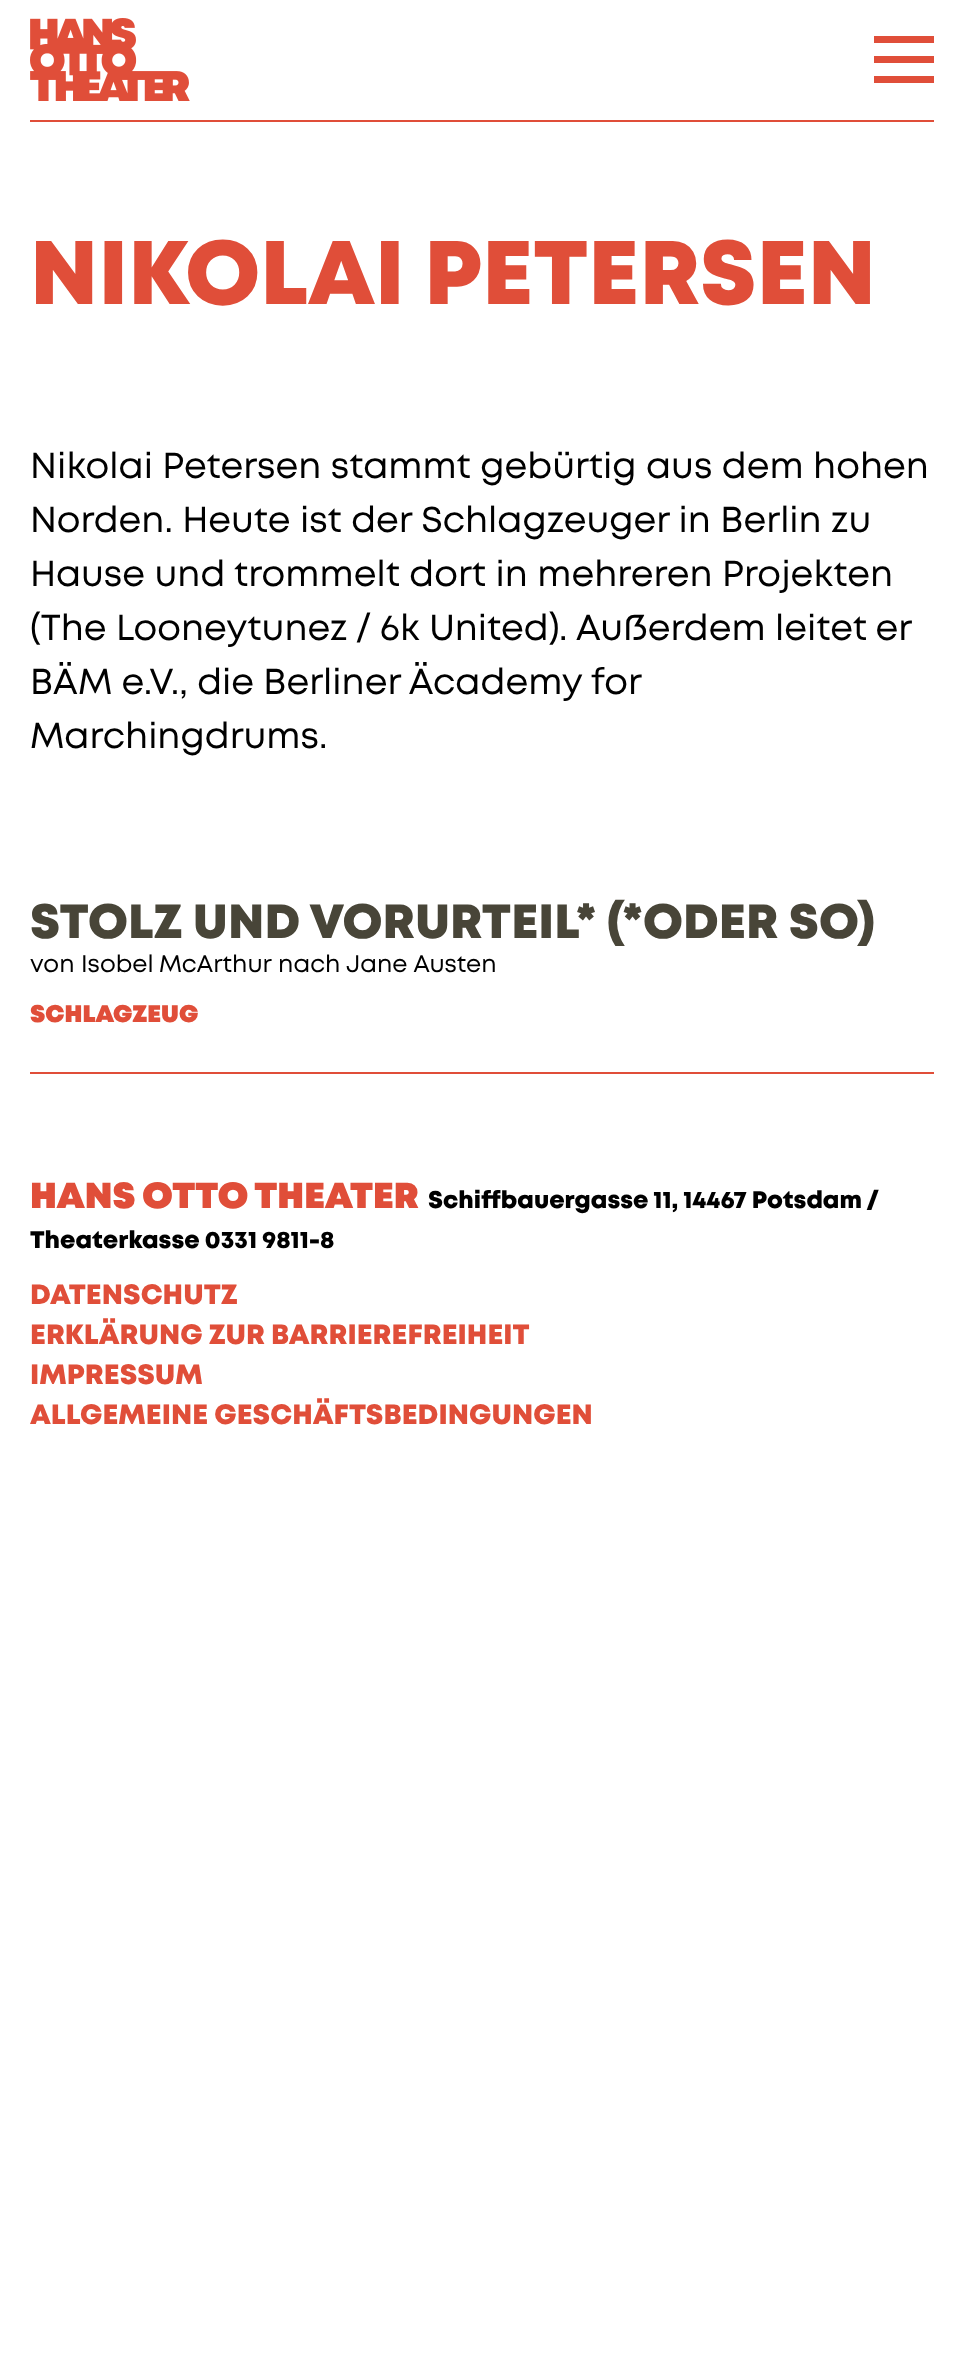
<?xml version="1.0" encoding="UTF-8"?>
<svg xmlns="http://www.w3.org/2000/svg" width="964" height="2353">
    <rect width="100%" height="100%" fill="#FFFFFF"/>
    <rect x="30" y="120" width="904" height="2" fill="#E04E39"/>
    <image x="30" y="18" width="160" height="83" href="img_01.png"/>
    <rect x="874" y="36" width="60" height="7" fill="#E04E39"/>
    <rect x="874" y="56" width="60" height="7" fill="#E04E39"/>
    <rect x="874" y="76" width="60" height="7" fill="#E04E39"/>
    <text x="30" y="304" font-family="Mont" font-size="90" fill="#E04E39">NIKOLAI PETERSEN</text>
    <text font-family="'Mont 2'" font-size="36" fill="#000000">
        <tspan x="30" y="478">Nikolai Petersen stammt gebürtig aus dem hohen</tspan>
        <tspan x="30" y="532">Norden. Heute ist der Schlagzeuger in Berlin zu</tspan>
        <tspan x="30" y="586">Hause und</tspan>
    </text>
    <text x="234" y="586" font-family="'Mont 2'" font-size="36" fill="#000000">trommelt dort in mehreren Projekten</text>
    <text x="30" y="640" font-family="'Mont 2'" font-size="36" fill="#000000">(The Looneytunez / 6k United). Außerdem</text>
    <text x="775" y="640" word-spacing="-1" font-family="'Mont 2'" font-size="36" fill="#000000">leitet er</text>
    <text font-family="'Mont 2'" font-size="36" fill="#000000">
        <tspan x="30" y="694" word-spacing="-0.25">BÄM e.V., die Berliner Äcademy for</tspan>
        <tspan x="30" y="748">Marchingdrums.</tspan>
    </text>
    <rect x="30" y="1072" width="904" height="2" fill="#E04E39"/>
    <text x="30" y="938" font-family="Mont" font-size="48" fill="#484538">STOLZ UND VORURTEIL* (*ODER SO)</text>
    <text x="30" y="972" font-family="'Mont 2'" font-size="24" fill="#000000">von</text>
    <text x="81" y="972" word-spacing="-1" font-family="'Mont 2'" font-size="24" fill="#000000">Isobel McArthur</text>
    <text x="278" y="972" font-family="'Mont 2'" font-size="24" fill="#000000">nach</text>
    <text x="346" y="972" font-family="'Mont 2'" font-size="24" fill="#000000">Jane Austen</text>
    <text x="30" y="1022" font-family="'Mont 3'" font-size="24" fill="#E04E39">SCHLAGZEUG</text>
    <text x="30" y="1208" font-family="'Mont 3'" font-size="36" fill="#E04E39">HANS OTTO THEATER</text>
    <text x="428" y="1208" word-spacing="-0.25" font-family="Mont" font-size="24" fill="#000000">Schiffbauergasse 11, 14467 Potsdam /</text>
    <text x="30" y="1248" font-family="Mont" font-size="24" fill="#000000">Theaterkasse 0331 9811-8</text>
    <text font-family="Mont" font-size="28" fill="#E04E39">
        <tspan x="30" y="1304">DATENSCHUTZ</tspan>
        <tspan x="30" y="1344">ERKLÄRUNG ZUR BARRIEREFREIHEIT</tspan>
        <tspan x="30" y="1384">IMPRESSUM</tspan>
        <tspan x="30" y="1424">ALLGEMEINE GESCHÄFTSBEDINGUNGEN</tspan>
    </text>
</svg>
